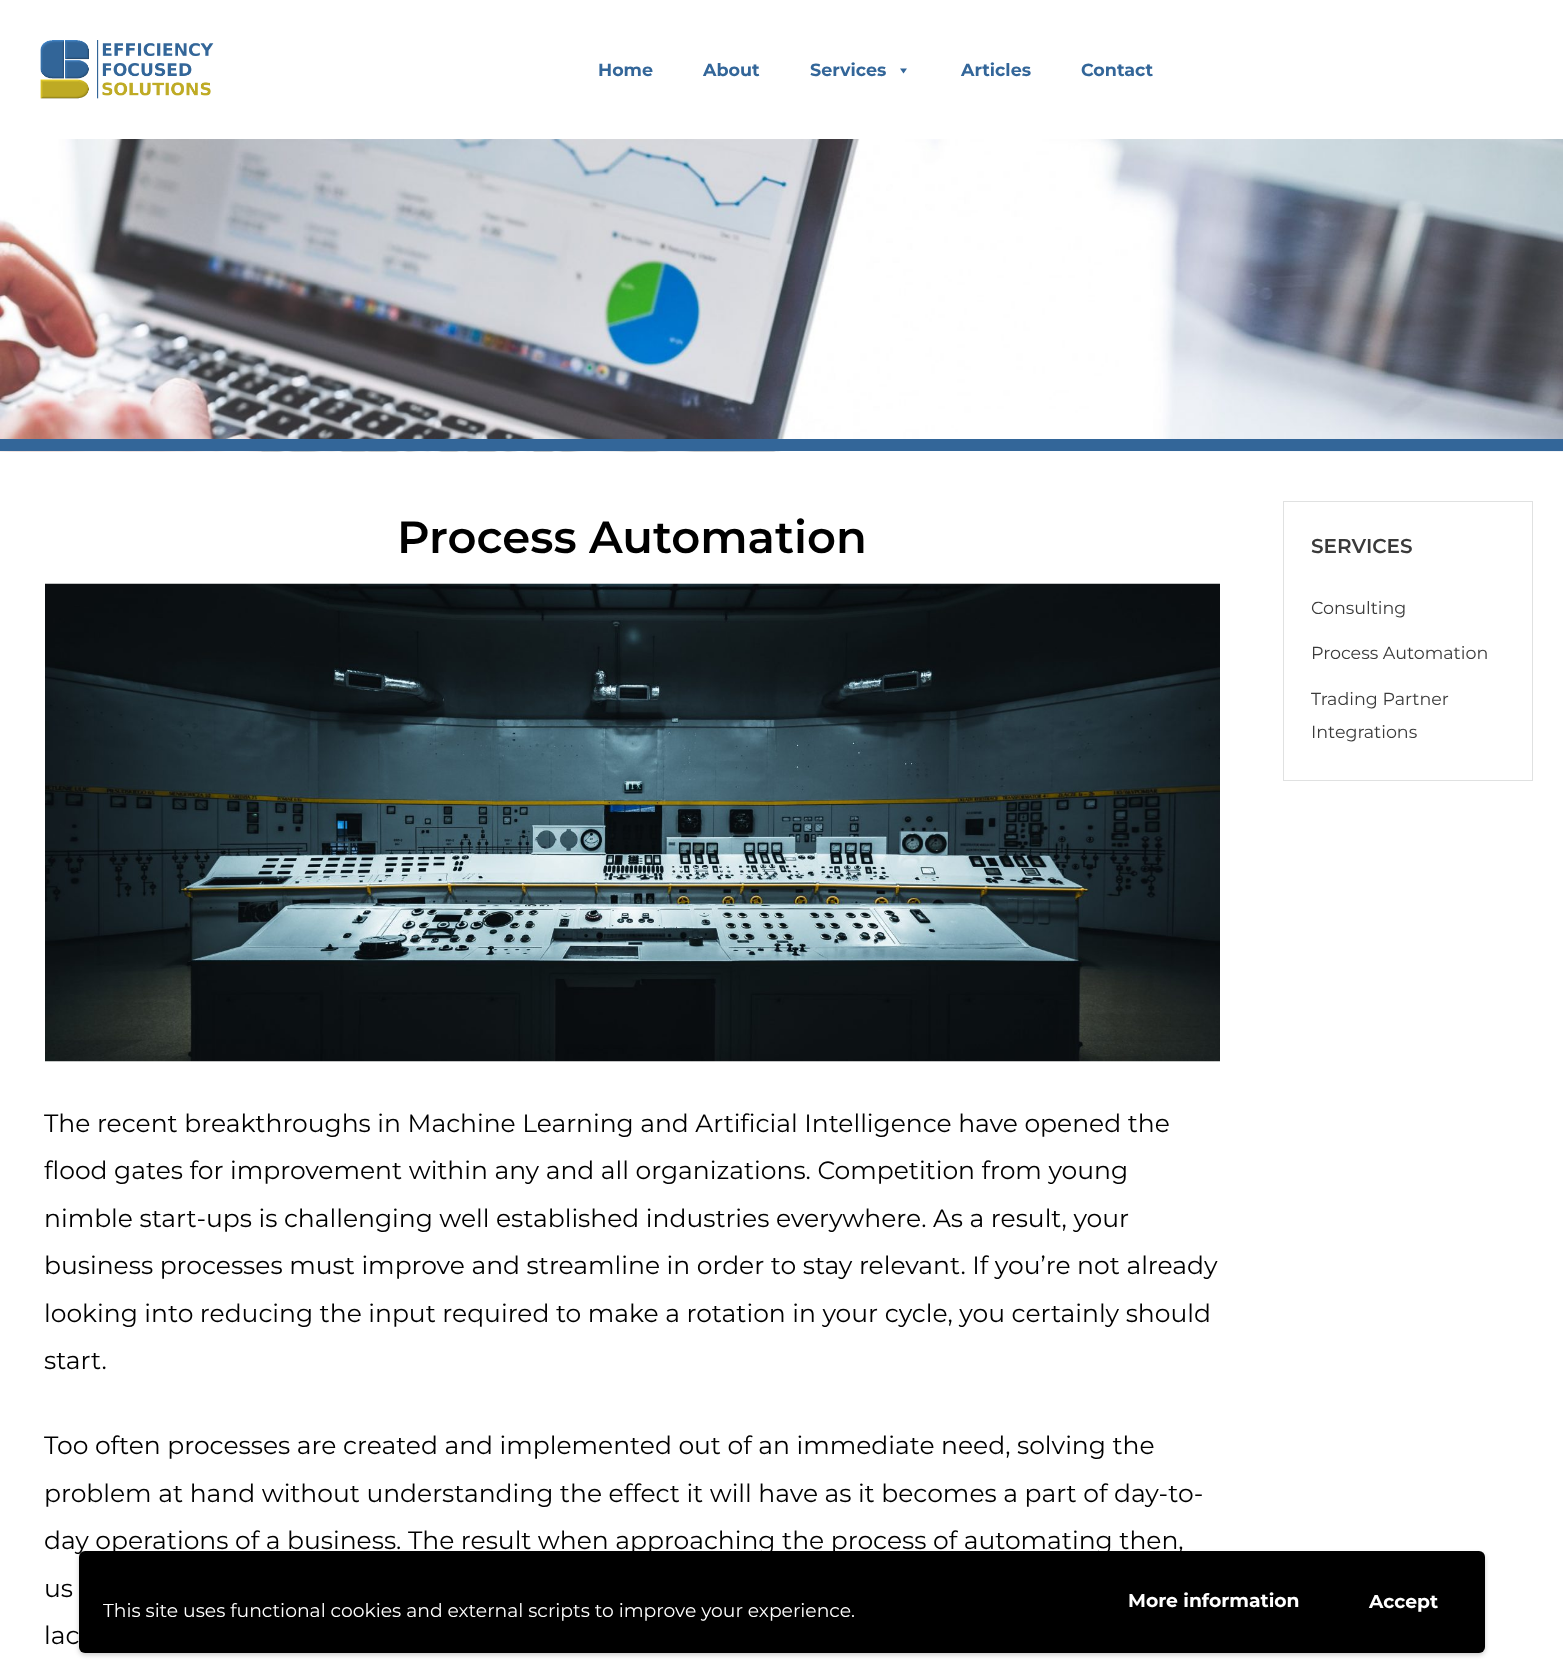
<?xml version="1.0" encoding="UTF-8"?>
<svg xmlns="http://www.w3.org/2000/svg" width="1563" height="1669">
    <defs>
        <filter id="blur1" x="-50%" y="-200%" width="200%" height="500%"><feGaussianBlur stdDeviation="2.5"/></filter>
    </defs>
    <rect width="100%" height="100%" fill="#FFFFFF"/>
    <image x="40" y="40" width="174" height="59" href="img_01.png"/>
    <text x="598" y="76" font-family="Montserrat" font-size="17.5" font-weight="700" fill="#336699">Home</text>
    <text x="703" y="76" font-family="Montserrat" font-size="17.5" font-weight="700" fill="#336699">About</text>
    <text x="810" y="76" font-family="Montserrat" font-size="17.5" font-weight="700" fill="#336699">Services</text>
    <path d="M 907 68.5 L 903.5 73.5 L 900 68.5 Z" fill="#336699"/>
    <text x="961" y="76" font-family="Montserrat" font-size="17.5" font-weight="700" fill="#336699">Articles</text>
    <text x="1081" y="76" font-family="Montserrat" font-size="17.5" font-weight="700" fill="#336699">Contact</text>
    <image x="0" y="139" width="1563" height="313" href="img_02.png"/>
    <rect x="0" y="439" width="1563" height="12" fill="#336699"/>
    <text x="397" y="553" font-family="Montserrat" font-size="45" font-weight="600" fill="#000000">Process Automation</text>
    <image x="45" y="583" width="1175" height="479" href="img_03.png"/>
    <text font-family="Montserrat" font-size="25" fill="#000000">
        <tspan x="44" y="1132">The recent breakthroughs in Machine Learning and Artificial Intelligence have opened the</tspan>
        <tspan x="44" y="1179">flood gates for improvement within any and all organizations. Competition from young</tspan>
        <tspan x="44" y="1227">nimble start-ups is challenging well established industries everywhere. As a result, your</tspan>
        <tspan x="44" y="1274">business processes must improve and streamline in order to stay relevant. If you’re not already</tspan>
        <tspan x="44" y="1322">looking into reducing the input required to make a rotation in your cycle, you certainly should</tspan>
        <tspan x="44" y="1369">start.</tspan>
    </text>
    <text font-family="Montserrat" font-size="25" fill="#000000">
        <tspan x="44" y="1454">Too often processes are created and implemented out of an immediate need, solving the</tspan>
        <tspan x="44" y="1502">problem at hand without understanding the effect it will have as it becomes a part of day-to-</tspan>
        <tspan x="44" y="1549">day operations of a business. The result when approaching the process of automating then,</tspan>
        <tspan x="44" y="1597">us</tspan>
        <tspan x="44" y="1644">lac</tspan>
    </text>
    <rect x="1283.5" y="501.5" width="249" height="279" fill="none" stroke="#E0E1E1"/>
    <text x="1311" y="553" font-family="Montserrat" font-size="20" font-weight="600" fill="#3A3A3A">SERVICES</text>
    <text x="1311" y="614" font-family="Montserrat" font-size="17.5" fill="#3A3A3A">Consulting</text>
    <text x="1311" y="659" font-family="Montserrat" font-size="17.5" fill="#3A3A3A">Process Automation</text>
    <text font-family="Montserrat" font-size="17.5" fill="#3A3A3A">
        <tspan x="1311" y="705">Trading Partner</tspan>
        <tspan x="1311" y="738">Integrations</tspan>
    </text>
    <rect x="79" y="1554" width="1406" height="101" rx="6" fill="#000000" fill-opacity="0.2" filter="url(#blur1)"/>
    <rect x="79" y="1551" width="1406" height="102" rx="6" fill="#000000"/>
    <text x="103" y="1617" font-family="Montserrat" font-size="18.75" fill="#FFFFFF">This site uses functional cookies and external scripts to improve your experience.</text>
    <text x="1128" y="1607" font-family="Montserrat" font-size="18.75" font-weight="700" fill="#FFFFFF">More information</text>
    <text x="1369" y="1608" font-family="Montserrat" font-size="18.75" font-weight="700" fill="#FFFFFF">Accept</text>
</svg>
